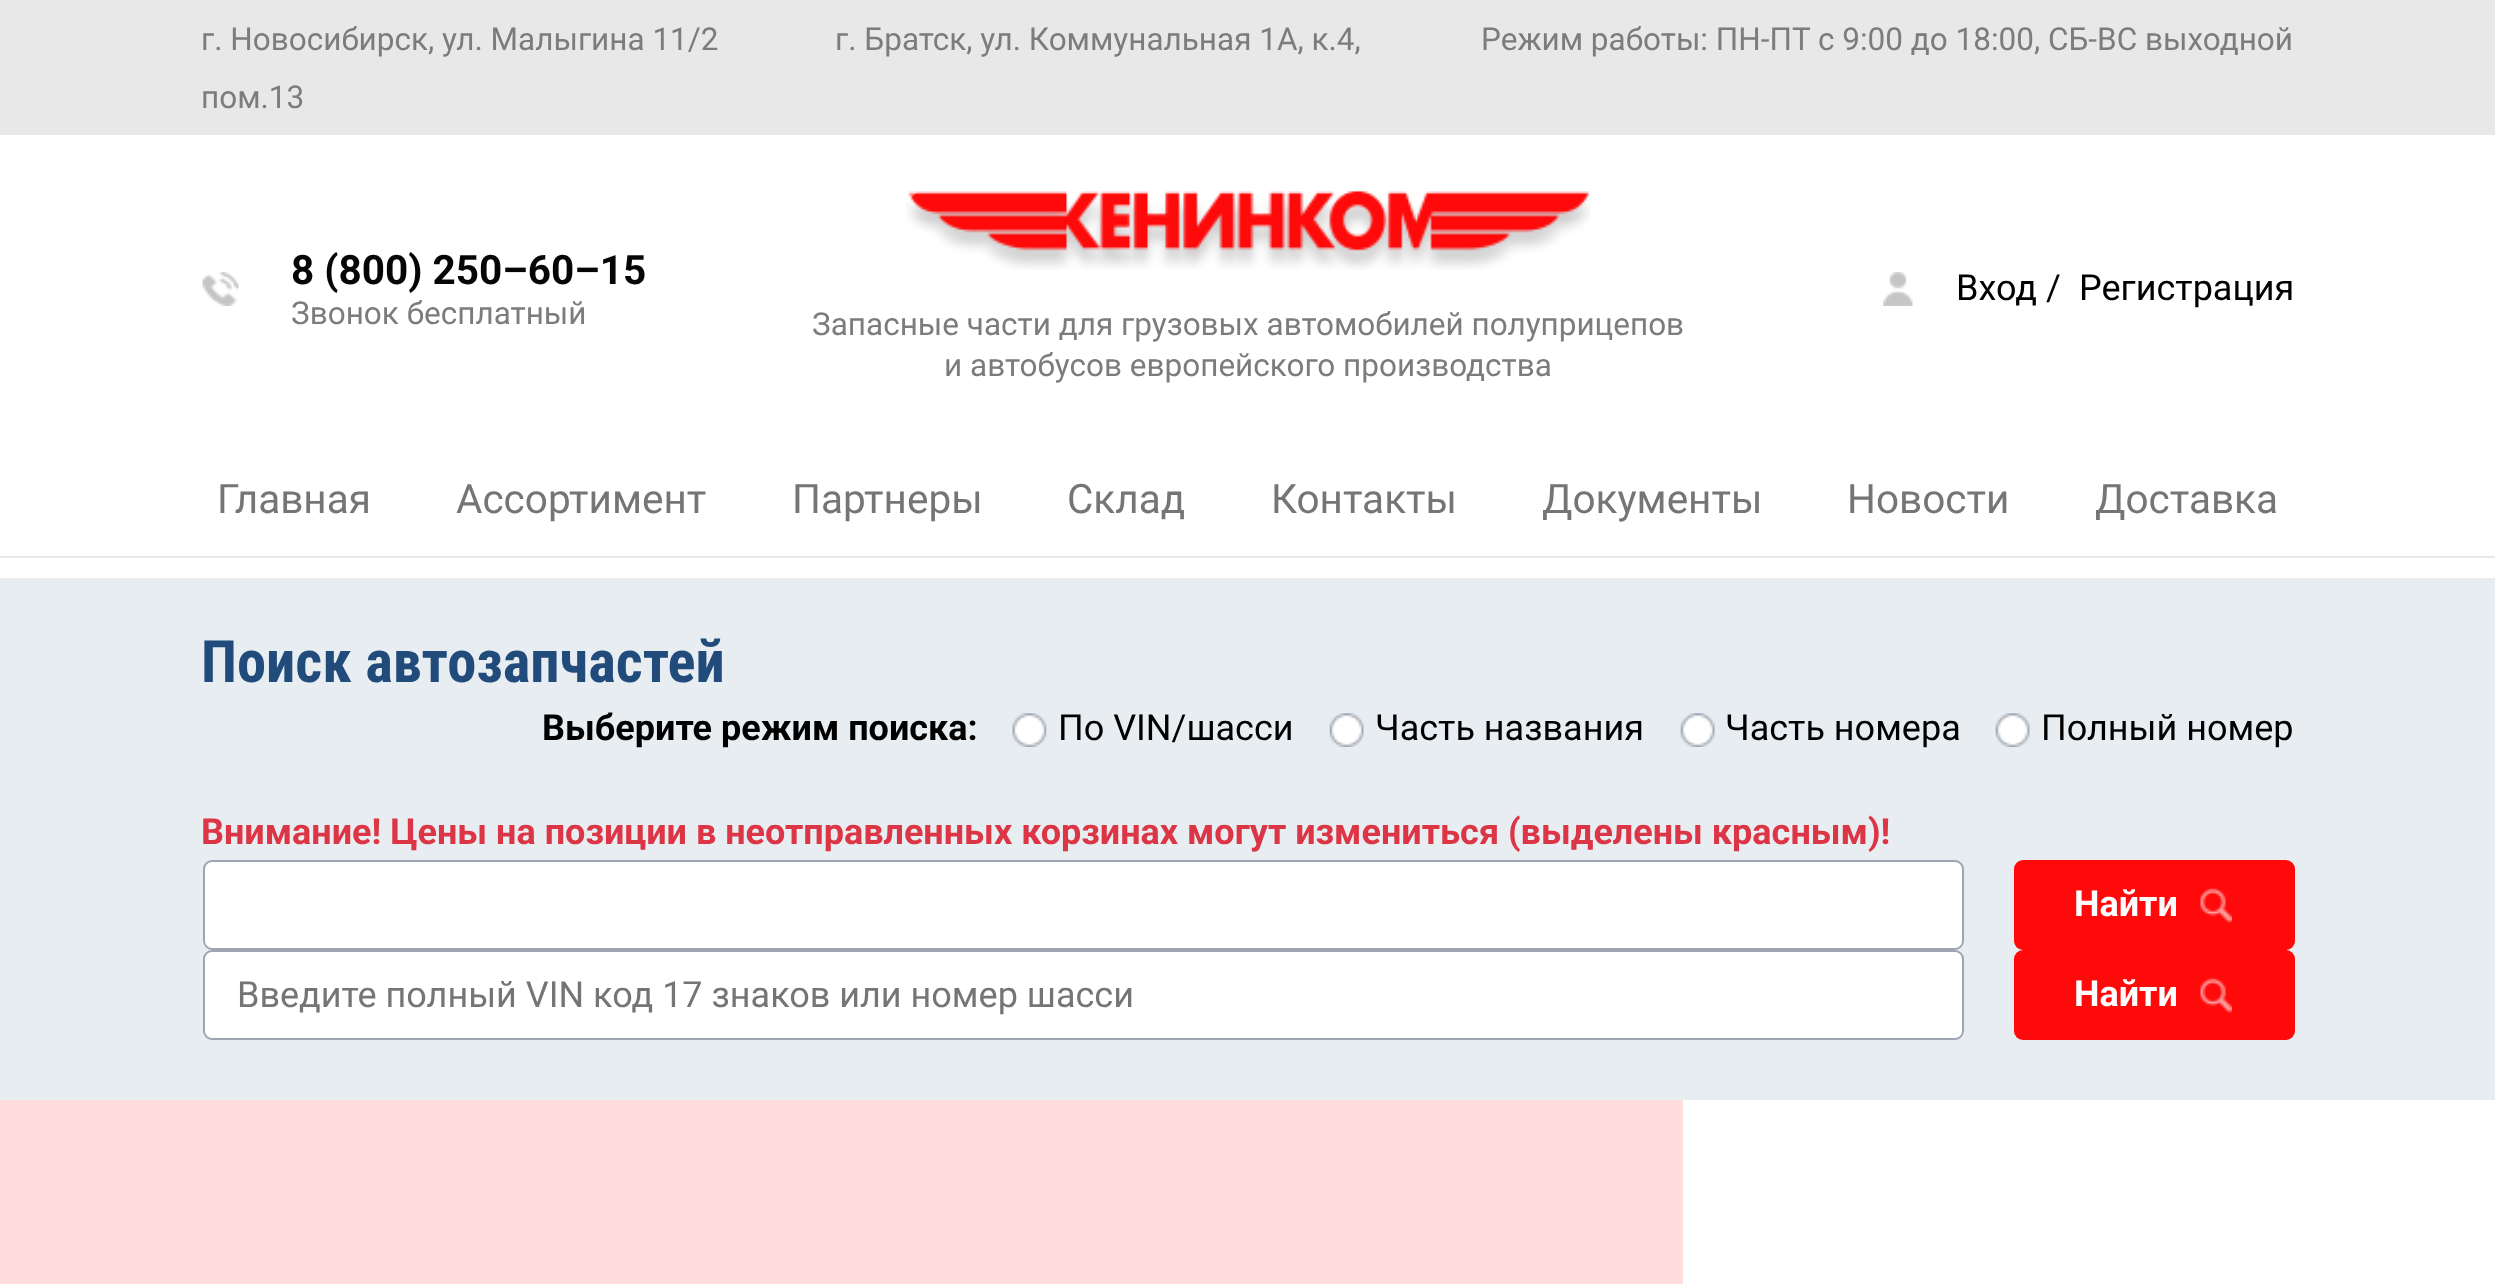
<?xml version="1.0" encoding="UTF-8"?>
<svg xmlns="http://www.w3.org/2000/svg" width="2495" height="1284">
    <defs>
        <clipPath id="clip1"><rect x="900" y="191" width="698" height="84"/></clipPath>
        <linearGradient id="g1" gradientUnits="userSpaceOnUse" x1="775" y1="233" x2="876" y2="233"><stop offset="0" stop-color="#FFFFFF" stop-opacity="0.1"/><stop offset="1" stop-color="#FFFFFF" stop-opacity="0.4"/></linearGradient>
    </defs>
    <rect width="100%" height="100%" fill="#FFFFFF"/>
    <rect x="0" y="0" width="2495" height="135" fill="#E8E8E8"/>
    <text x="201" y="50" font-family="Roboto" font-size="31.5" fill="#7C7C7C">г. Новосибирск, ул. Малыгина 11/2</text>
    <text x="835" y="50" font-family="Roboto" font-size="31.5" fill="#7C7C7C">г. Братск, ул. Коммунальная 1А, к.4,</text>
    <text x="201" y="108" font-family="Roboto" font-size="31.5" fill="#7C7C7C">пом.13</text>
    <text x="1481" y="50" font-family="Roboto" font-size="31.5" fill="#7C7C7C">Режим работы: ПН-ПТ с 9:00 до 18:00, СБ-ВС выходной</text>
    <image x="202" y="272" width="37" height="34" href="img_01.png"/>
    <text x="291" y="284" font-family="Roboto" font-size="40.5" font-weight="700" fill="#060606">8 (800) 250–60–15</text>
    <text x="291" y="324" font-family="Roboto" font-size="31.5" fill="#7C7C7C">Звонок бесплатный</text>
    <image x="1883" y="272" width="30" height="34" href="img_02.png"/>
    <text x="1956" y="300" font-family="Roboto" font-size="36" fill="#000000">Вход</text>
    <text x="2046" y="300" font-family="Roboto" font-size="36" fill="#060606">/</text>
    <text x="2079" y="300" font-family="Roboto" font-size="36" fill="#000000">Регистрация</text>
    <image x="906" y="191" width="685" height="79" href="img_03.png"/>
    <g clip-path="url(#clip1)">
        <path d="M 817 191 H 918 L 835 274 H 734 Z" fill="url(#g1)"/>
    </g>
    <text x="812" y="335" font-family="Roboto" font-size="31.5" fill="#7C7C7C">Запасные части для грузовых автомобилей полуприцепов</text>
    <text x="944" y="376" font-family="Roboto" font-size="31.5" fill="#7C7C7C">и автобусов европейского производства</text>
    <rect x="0" y="556" width="2495" height="2" fill="#E8E8E8"/>
    <text x="217" y="513" font-family="Roboto" font-size="40.5" fill="#757575">Главная</text>
    <text x="456" y="513" font-family="Roboto" font-size="40.5" fill="#757575">Ассортимент</text>
    <text x="792" y="513" font-family="Roboto" font-size="40.5" fill="#757575">Партнеры</text>
    <text x="1067" y="513" font-family="Roboto" font-size="40.5" fill="#757575">Склад</text>
    <text x="1271" y="513" font-family="Roboto" font-size="40.5" fill="#757575">Контакты</text>
    <text x="1542" y="513" font-family="Roboto" font-size="40.5" fill="#757575">Документы</text>
    <text x="1847" y="513" font-family="Roboto" font-size="40.5" fill="#757575">Новости</text>
    <text x="2095" y="513" font-family="Roboto" font-size="40.5" fill="#757575">Доставка</text>
    <rect x="0" y="578" width="2495" height="522" fill="#E8EDF2"/>
    <text x="201" y="682" font-family="Roboto Condensed" font-size="58.5" font-weight="700" fill="#214B7B">Поиск автозапчастей</text>
    <text x="542" y="740" font-family="Roboto" font-size="36" font-weight="700" fill="#000000">Выберите режим поиска:</text>
    <image x="1012" y="713" width="35" height="34" href="img_04.png"/>
    <text x="1058" y="740" font-family="Roboto" font-size="36" fill="#000000">По VIN/шасси</text>
    <image x="1329" y="713" width="35" height="34" href="img_05.png"/>
    <text x="1375" y="740" font-family="Roboto" font-size="36" fill="#000000">Часть названия</text>
    <image x="1680" y="713" width="35" height="34" href="img_05.png"/>
    <text x="1725" y="740" font-family="Roboto" font-size="36" fill="#000000">Часть номера</text>
    <image x="1995" y="713" width="35" height="34" href="img_05.png"/>
    <text x="2041" y="740" font-family="Roboto" font-size="36" fill="#000000">Полный номер</text>
    <text x="201" y="844" font-family="Roboto" font-size="36" font-weight="700" fill="#DC3545">Внимание! Цены на позиции в неотправленных корзинах могут измениться (выделены красным)!</text>
    <rect x="204" y="861" width="1759" height="88" rx="8" fill="#FFFFFF" stroke="#9DA6B0" stroke-width="2"/>
    <rect x="2014" y="860" width="281" height="90" rx="9" fill="#FF0A0B"/>
    <image x="2200" y="888" width="32" height="35" href="img_06.png"/>
    <text x="2074" y="916" font-family="Roboto" font-size="36" font-weight="700" fill="#FFFFFF">Найти</text>
    <rect x="204" y="951" width="1759" height="88" rx="8" fill="#FFFFFF" stroke="#9DA6B0" stroke-width="2"/>
    <text x="237" y="1007" font-family="Roboto" font-size="36" fill="#757575">Введите полный VIN код 17 знаков или номер шасси</text>
    <rect x="2014" y="950" width="281" height="90" rx="9" fill="#FF0A0B"/>
    <image x="2200" y="978" width="32" height="35" href="img_06.png"/>
    <text x="2074" y="1006" font-family="Roboto" font-size="36" font-weight="700" fill="#FFFFFF">Найти</text>
    <rect x="0" y="1100" width="1683" height="184" fill="#FFDDDD"/>
</svg>
